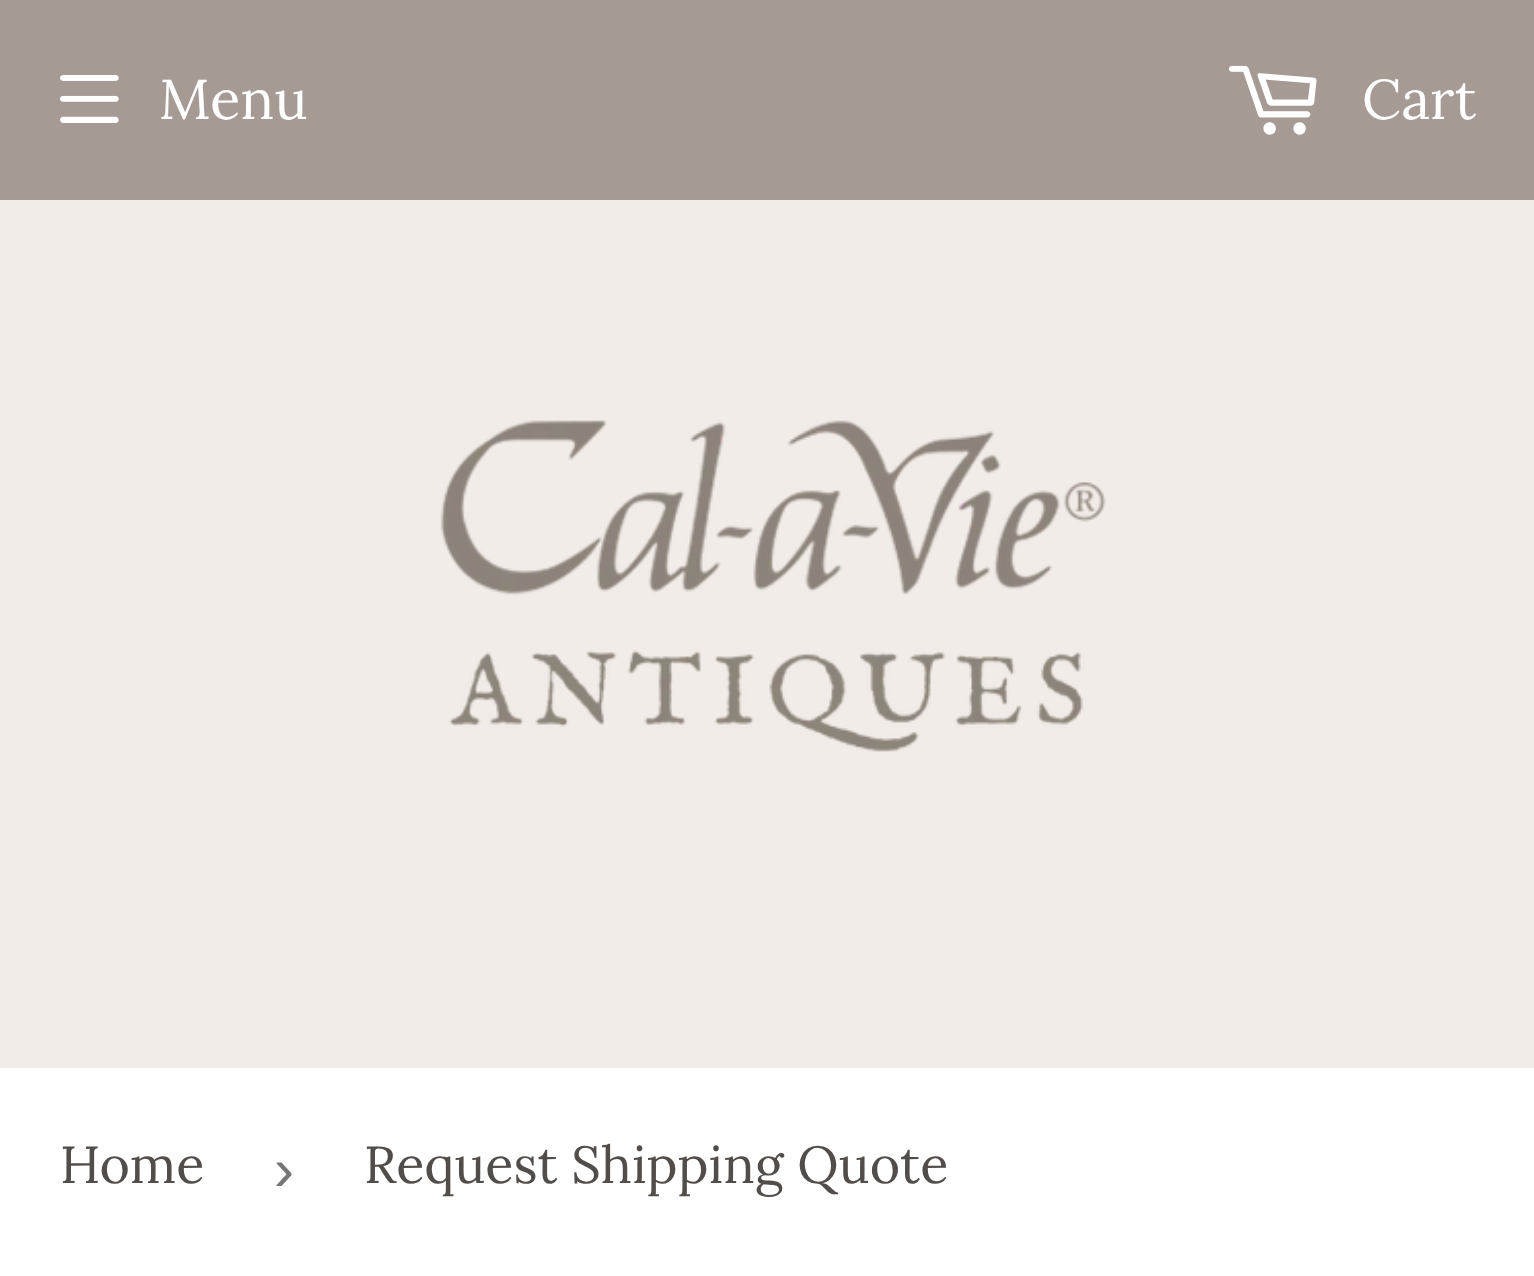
<?xml version="1.0" encoding="UTF-8"?>
<svg xmlns="http://www.w3.org/2000/svg" width="1534" height="1276">
    <rect width="100%" height="100%" fill="#FFFFFF"/>
    <rect x="0" y="0" width="1534" height="200" fill="#A69A95"/>
    <image x="60" y="75" width="59" height="48" href="img_01.png"/>
    <text x="159" y="119" font-family="Lora" font-size="56" fill="#FFFFFF">Menu</text>
    <image x="1229" y="65" width="88" height="70" href="img_02.png"/>
    <text x="1362" y="119" font-family="Lora" font-size="56" fill="#FFFFFF">Cart</text>
    <rect x="0" y="200" width="1534" height="868" fill="#F2ECE9"/>
    <image x="440" y="420" width="666" height="332" href="img_03.png"/>
    <text x="60" y="1183" font-family="Lora" font-size="52" fill="#514D4B">Home</text>
    <text x="274" y="1190" font-family="Liberation Sans" font-size="60" fill="#767676">›</text>
    <text x="364" y="1183" font-family="Lora" font-size="52" fill="#514D4B">Request Shipping Quote</text>
</svg>
